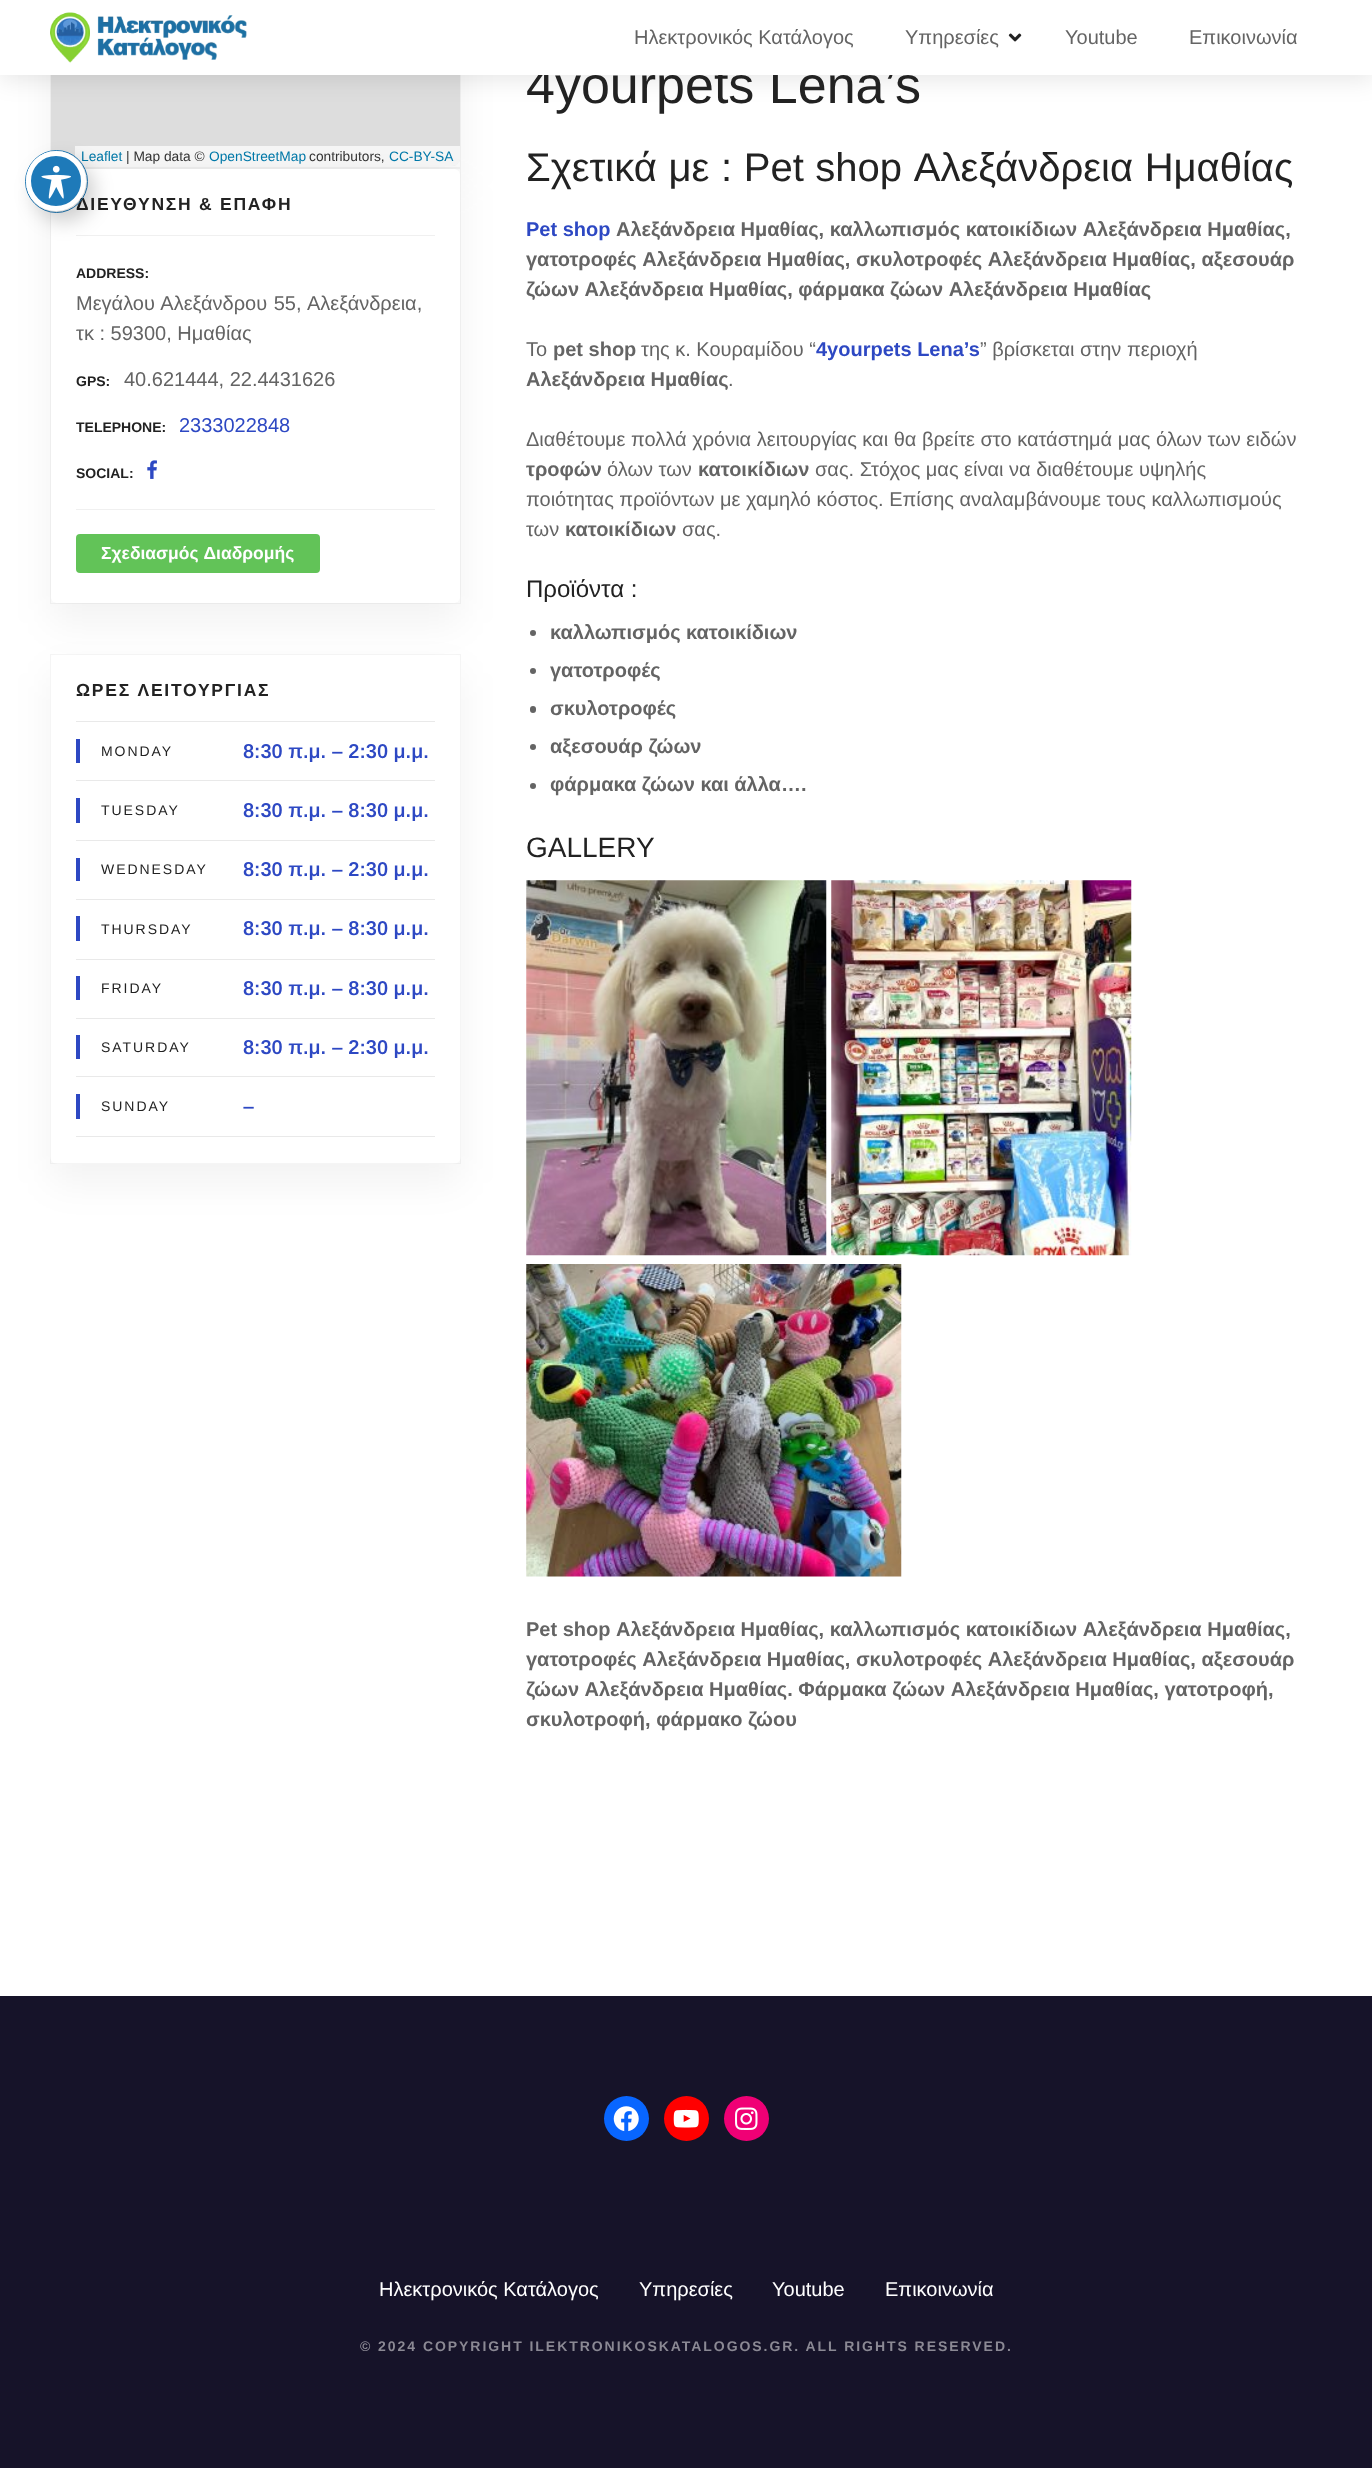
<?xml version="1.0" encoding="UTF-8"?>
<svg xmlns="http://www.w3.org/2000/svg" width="1372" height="2468">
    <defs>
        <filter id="blur1" x="-50%" y="-200%" width="200%" height="500%"><feGaussianBlur stdDeviation="19"/></filter>
        <filter id="blur2" x="-50%" y="-200%" width="200%" height="500%"><feGaussianBlur stdDeviation="10"/></filter>
        <filter id="blur3" x="-50%" y="-200%" width="200%" height="500%"><feGaussianBlur stdDeviation="12.5"/></filter>
        <clipPath id="clip1"><path d="M 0 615 H 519 V 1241 H 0 Z M 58 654 H 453 C 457.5 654 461 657.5 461 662 V 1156 C 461 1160.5 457.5 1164 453 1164 H 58 C 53.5 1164 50 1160.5 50 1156 V 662 C 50 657.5 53.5 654 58 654 Z" clip-rule="evenodd"/></clipPath>
    </defs>
    <rect width="100%" height="100%" fill="#FFFFFF"/>
    <rect x="50" y="-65" width="411" height="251" rx="8" fill="#000000" fill-opacity="0.05" filter="url(#blur1)"/>
    <rect x="50.5" y="-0.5" width="410" height="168" fill="none" stroke="#000000" stroke-opacity="0.04"/>
    <rect x="51" y="-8" width="409" height="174" rx="8" fill="#DDDDDD"/>
    <path d="M 75 146 H 460 V 158 C 460 162.5 456.5 166 452 166 H 75 Z" fill="#FFFFFF" fill-opacity="0.7"/>
    <text x="81" y="161" font-family="Liberation Sans" font-size="13.75" fill="#0078A8">Leaflet</text>
    <rect x="50" y="186" width="411" height="437" rx="8" fill="#000000" fill-opacity="0.05" filter="url(#blur1)"/>
    <rect x="51" y="169" width="409" height="434" rx="6" fill="#FFFFFF"/>
    <rect x="50.5" y="168.5" width="410" height="435" fill="none" stroke="#000000" stroke-opacity="0.04"/>
    <text x="76" y="210" font-family="Arimo" font-size="17.5" font-weight="700" letter-spacing="1.75" fill="#222222">ΔΙΕΥΘΥΝΣΗ &amp; ΕΠΑΦΗ</text>
    <circle cx="56.5" cy="181.5" r="31" fill="none" stroke="#1E7AB9"/>
    <rect x="76" y="235" width="359" height="1" fill="#F0F0F0"/>
    <rect x="34" y="161" width="60" height="60" rx="30" fill="#000000" fill-opacity="0.2" filter="url(#blur2)"/>
    <circle cx="56" cy="181" r="27.5" fill="#1E7AB9" stroke="#FFFFFF" stroke-width="5"/>
    <image x="41" y="165" width="30" height="34" href="img_01.png"/>
    <rect x="0" y="4" width="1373" height="75" fill="#000000" fill-opacity="0.1" filter="url(#blur3)"/>
    <text x="526" y="103" font-family="Arimo" font-size="52" fill="#222222">4yourpets Lena’s</text>
    <rect x="0" y="0" width="1372" height="75" fill="#FFFFFF"/>
    <image x="50" y="12" width="197" height="51" href="img_02.png"/>
    <text x="634" y="44" font-family="Arimo" font-size="20" fill="#646464">Ηλεκτρονικός Κατάλογος</text>
    <text x="905" y="44" font-family="Arimo" font-size="20" fill="#646464">Υπηρεσίες</text>
    <image x="1008" y="33" width="14" height="9" href="img_03.png"/>
    <text x="1065" y="44" font-family="Arimo" font-size="20" fill="#646464">Youtube</text>
    <text x="1189" y="44" font-family="Arimo" font-size="20" fill="#646464">Επικοινωνία</text>
    <text x="126" y="161" font-family="Liberation Sans" font-size="13.75" fill="#333333">| Map data ©</text>
    <text x="209" y="161" font-family="Liberation Sans" font-size="13.75" fill="#0078A8">OpenStreetMap</text>
    <text x="309" y="161" font-family="Liberation Sans" font-size="13.75" fill="#333333">contributors,</text>
    <text x="389" y="161" font-family="Liberation Sans" font-size="13.75" fill="#0078A8">CC-BY-SA</text>
    <text x="76" y="278" font-family="Arimo" font-size="14" font-weight="700" fill="#222222">ADDRESS:</text>
    <text font-family="Arimo" font-size="20" fill="#646464">
        <tspan x="76" y="310" word-spacing="1">Μεγάλου Αλεξάνδρου 55, Αλεξάνδρεια,</tspan>
        <tspan x="76" y="340">τκ : 59300, Ημαθίας</tspan>
    </text>
    <text x="76" y="386" font-family="Arimo" font-size="14" font-weight="700" fill="#222222">GPS:</text>
    <text x="124" y="386" font-family="Arimo" font-size="20" fill="#646464">40.621444, 22.4431626</text>
    <text x="76" y="432" font-family="Arimo" font-size="14" font-weight="700" fill="#222222">TELEPHONE:</text>
    <text x="179" y="432" font-family="Arimo" font-size="20" fill="#2D48C3">2333022848</text>
    <text x="76" y="478" font-family="Arimo" font-size="14" font-weight="700" fill="#222222">SOCIAL:</text>
    <image x="147" y="460" width="10" height="19" href="img_04.png"/>
    <rect x="76" y="509" width="359" height="1" fill="#F0F0F0"/>
    <rect x="76" y="534" width="244" height="39" rx="4" fill="#62C358"/>
    <text x="101" y="559" font-family="Arimo" font-size="17.5" font-weight="700" fill="#FFFFFF">Σχεδιασμός Διαδρομής</text>
    <g clip-path="url(#clip1)">
        <rect x="50" y="673" width="411" height="510" rx="8" fill="#000000" fill-opacity="0.05" filter="url(#blur1)"/>
    </g>
    <rect x="50.5" y="654.5" width="410" height="509" fill="none" stroke="#000000" stroke-opacity="0.04"/>
    <text x="76" y="696" font-family="Arimo" font-size="17.5" font-weight="700" letter-spacing="1.75" fill="#222222">ΩΡΕΣ ΛΕΙΤΟΥΡΓΙΑΣ</text>
    <rect x="76" y="1136" width="359" height="1" fill="#E9E9E9"/>
    <rect x="76" y="721" width="359" height="1" fill="#E9E9E9"/>
    <rect x="76" y="739" width="4" height="24" fill="#2D48C3"/>
    <text x="101" y="756" font-family="Arimo" font-size="14" letter-spacing="1.95" fill="#222222">MONDAY</text>
    <text x="243" y="758" font-family="Arimo" font-size="20" font-weight="600" fill="#2D48C3">8:30 π.μ. – 2:30 μ.μ.</text>
    <rect x="76" y="780" width="359" height="1" fill="#E9E9E9"/>
    <rect x="76" y="798" width="4" height="25" fill="#2D48C3"/>
    <text x="101" y="815" font-family="Arimo" font-size="14" letter-spacing="1.95" fill="#222222">TUESDAY</text>
    <text x="243" y="817" font-family="Arimo" font-size="20" font-weight="600" fill="#2D48C3">8:30 π.μ. – 8:30 μ.μ.</text>
    <rect x="76" y="840" width="359" height="1" fill="#E9E9E9"/>
    <rect x="76" y="858" width="4" height="23" fill="#2D48C3"/>
    <text x="101" y="874" font-family="Arimo" font-size="14" letter-spacing="1.95" fill="#222222">WEDNESDAY</text>
    <text x="243" y="876" font-family="Arimo" font-size="20" font-weight="600" fill="#2D48C3">8:30 π.μ. – 2:30 μ.μ.</text>
    <rect x="76" y="899" width="359" height="1" fill="#E9E9E9"/>
    <rect x="76" y="916" width="4" height="25" fill="#2D48C3"/>
    <text x="101" y="934" font-family="Arimo" font-size="14" letter-spacing="1.95" fill="#222222">THURSDAY</text>
    <text x="243" y="935" font-family="Arimo" font-size="20" font-weight="600" fill="#2D48C3">8:30 π.μ. – 8:30 μ.μ.</text>
    <rect x="76" y="959" width="359" height="1" fill="#E9E9E9"/>
    <rect x="76" y="976" width="4" height="24" fill="#2D48C3"/>
    <text x="101" y="993" font-family="Arimo" font-size="14" letter-spacing="1.95" fill="#222222">FRIDAY</text>
    <text x="243" y="995" font-family="Arimo" font-size="20" font-weight="600" fill="#2D48C3">8:30 π.μ. – 8:30 μ.μ.</text>
    <rect x="76" y="1018" width="359" height="1" fill="#E9E9E9"/>
    <rect x="76" y="1035" width="4" height="24" fill="#2D48C3"/>
    <text x="101" y="1052" font-family="Arimo" font-size="14" letter-spacing="1.95" fill="#222222">SATURDAY</text>
    <text x="243" y="1054" font-family="Arimo" font-size="20" font-weight="600" fill="#2D48C3">8:30 π.μ. – 2:30 μ.μ.</text>
    <rect x="76" y="1076" width="359" height="1" fill="#E9E9E9"/>
    <rect x="76" y="1094" width="4" height="25" fill="#2D48C3"/>
    <text x="101" y="1111" font-family="Arimo" font-size="14" letter-spacing="1.95" fill="#222222">SUNDAY</text>
    <text x="243" y="1113" font-family="Arimo" font-size="20" font-weight="600" fill="#2D48C3">–</text>
    <text x="526" y="181" word-spacing="0.5" font-family="Arimo" font-size="40" fill="#222222">Σχετικά με : Pet shop Αλεξάνδρεια Ημαθίας</text>
    <text x="526" y="236" font-family="Arimo" font-size="20" font-weight="700" fill="#2D48C3">Pet shop</text>
    <text x="616" y="236" font-family="Arimo" font-size="20" font-weight="700" fill="#646464">Αλεξάνδρεια Ημαθίας, καλλωπισμός κατοικίδιων Αλεξάνδρεια Ημαθίας,</text>
    <text font-family="Arimo" font-size="20" font-weight="700" fill="#646464">
        <tspan x="526" y="266">γατοτροφές Αλεξάνδρεια Ημαθίας, σκυλοτροφές Αλεξάνδρεια Ημαθίας, αξεσουάρ</tspan>
        <tspan x="526" y="296">ζώων Αλεξάνδρεια Ημαθίας, φάρμακα ζώων Αλεξάνδρεια Ημαθίας</tspan>
    </text>
    <text x="526" y="356" font-family="Arimo" font-size="20" fill="#646464">Το</text>
    <text x="553" y="356" font-family="Arimo" font-size="20" font-weight="700" fill="#646464">pet shop</text>
    <text x="641" y="356" font-family="Arimo" font-size="20" fill="#646464">της κ. Κουραμίδου “</text>
    <text x="816" y="356" font-family="Arimo" font-size="20" font-weight="700" fill="#2D48C3">4yourpets Lena’s</text>
    <text x="980" y="356" font-family="Arimo" font-size="20" fill="#646464">” βρίσκεται στην περιοχή</text>
    <text x="526" y="386" font-family="Arimo" font-size="20" font-weight="700" fill="#646464">Αλεξάνδρεια Ημαθίας</text>
    <text x="728" y="386" font-family="Arimo" font-size="20" fill="#646464">.</text>
    <text x="526" y="446" font-family="Arimo" font-size="20" fill="#646464">Διαθέτουμε πολλά χρόνια λειτουργίας και θα βρείτε στο κατάστημά μας όλων των ειδών</text>
    <text x="526" y="476" font-family="Arimo" font-size="20" font-weight="700" fill="#646464">τροφών</text>
    <text x="607" y="476" font-family="Arimo" font-size="20" fill="#646464">όλων των</text>
    <text x="698" y="476" font-family="Arimo" font-size="20" font-weight="700" fill="#646464">κατοικίδιων</text>
    <text x="815" y="476" font-family="Arimo" font-size="20" fill="#646464">σας. Στόχος μας είναι να διαθέτουμε υψηλής</text>
    <text font-family="Arimo" font-size="20" fill="#646464">
        <tspan x="526" y="506">ποιότητας προϊόντων με χαμηλό κόστος. Επίσης αναλαμβάνουμε τους καλλωπισμούς</tspan>
        <tspan x="526" y="536">των</tspan>
    </text>
    <text x="565" y="536" font-family="Arimo" font-size="20" font-weight="700" fill="#646464">κατοικίδιων</text>
    <text x="682" y="536" font-family="Arimo" font-size="20" fill="#646464">σας.</text>
    <text x="526" y="597" font-family="Arimo" font-size="24" fill="#222222">Προϊόντα :</text>
    <circle cx="533" cy="633" r="3" fill="#646464"/>
    <text x="550" y="639" font-family="Arimo" font-size="20" font-weight="700" fill="#646464">καλλωπισμός κατοικίδιων</text>
    <circle cx="533" cy="671" r="3" fill="#646464"/>
    <text x="550" y="677" font-family="Arimo" font-size="20" font-weight="700" fill="#646464">γατοτροφές</text>
    <rect x="530" y="706" width="6" height="7" rx="3" fill="#646464"/>
    <text x="550" y="715" font-family="Arimo" font-size="20" font-weight="700" fill="#646464">σκυλοτροφές</text>
    <circle cx="533" cy="747" r="3" fill="#646464"/>
    <text x="550" y="753" font-family="Arimo" font-size="20" font-weight="700" fill="#646464">αξεσουάρ ζώων</text>
    <circle cx="533" cy="786" r="3" fill="#646464"/>
    <text x="550" y="791" font-family="Arimo" font-size="20" font-weight="700" fill="#646464">φάρμακα ζώων και άλλα….</text>
    <text x="526" y="857" font-family="Arimo" font-size="28" fill="#222222">GALLERY</text>
    <image x="526" y="880" width="301" height="376" href="img_05.png"/>
    <image x="831" y="880" width="301" height="376" href="img_06.png"/>
    <image x="526" y="1264" width="376" height="313" href="img_07.png"/>
    <text font-family="Arimo" font-size="20" font-weight="700" fill="#646464">
        <tspan x="526" y="1636">Pet shop Αλεξάνδρεια Ημαθίας, καλλωπισμός κατοικίδιων Αλεξάνδρεια Ημαθίας,</tspan>
        <tspan x="526" y="1666">γατοτροφές Αλεξάνδρεια Ημαθίας, σκυλοτροφές Αλεξάνδρεια Ημαθίας, αξεσουάρ</tspan>
        <tspan x="526" y="1696">ζώων Αλεξάνδρεια Ημαθίας. Φάρμακα ζώων Αλεξάνδρεια Ημαθίας, γατοτροφή,</tspan>
        <tspan x="526" y="1726">σκυλοτροφή, φάρμακο ζώου</tspan>
    </text>
    <rect x="0" y="1996" width="1372" height="472" fill="#161329"/>
    <circle cx="626.5" cy="2118.5" r="22.5" fill="#0866FF"/>
    <image x="613" y="2106" width="26" height="26" href="img_08.png"/>
    <circle cx="686.5" cy="2118.5" r="22.5" fill="#FF0000"/>
    <image x="673" y="2109" width="26" height="19" href="img_09.png"/>
    <circle cx="746.5" cy="2118.5" r="22.5" fill="#F00075"/>
    <image x="735" y="2107" width="23" height="23" href="img_10.png"/>
    <text x="379" y="2296" font-family="Arimo" font-size="20" fill="#FFFFFF">Ηλεκτρονικός Κατάλογος</text>
    <text x="639" y="2296" font-family="Arimo" font-size="20" fill="#FFFFFF">Υπηρεσίες</text>
    <text x="772" y="2296" font-family="Arimo" font-size="20" fill="#FFFFFF">Youtube</text>
    <text x="885" y="2296" font-family="Arimo" font-size="20" fill="#FFFFFF">Επικοινωνία</text>
    <text x="360" y="2351" font-family="Arimo" font-size="14" font-weight="700" letter-spacing="1.95" fill="#8B8994">© 2024 COPYRIGHT ILEKTRONIKOSKATALOGOS.GR. ALL RIGHTS RESERVED.</text>
</svg>
